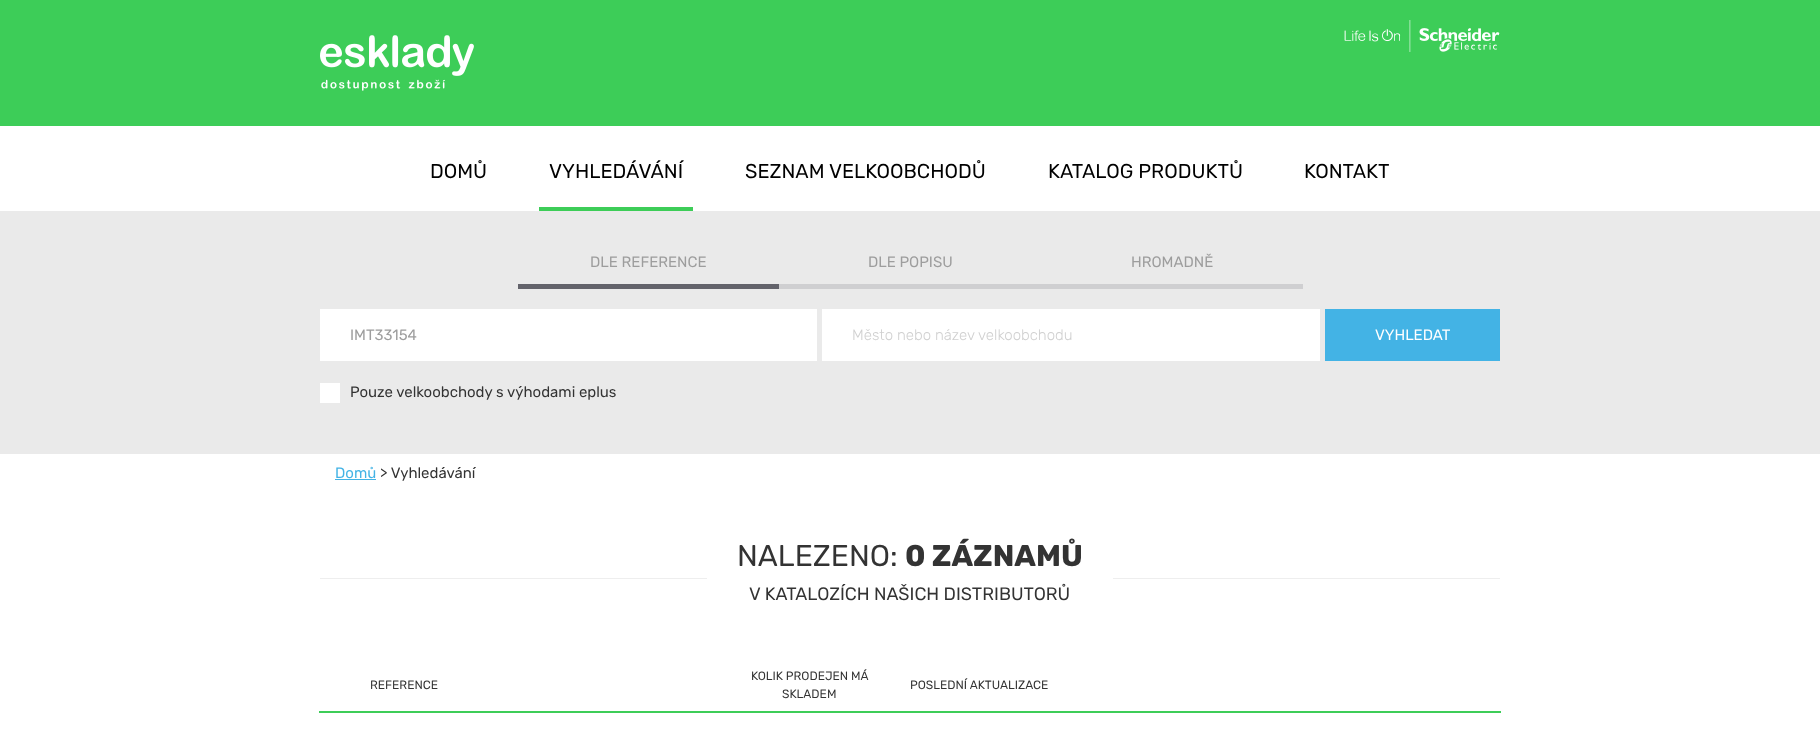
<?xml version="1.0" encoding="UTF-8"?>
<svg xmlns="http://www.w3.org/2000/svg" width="1820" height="733">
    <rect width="100%" height="100%" fill="#FFFFFF"/>
    <rect x="0" y="0" width="1820" height="126" fill="#3DCD58"/>
    <image x="320" y="35" width="154" height="56" href="img_01.png"/>
    <image x="1344" y="20" width="156" height="32" href="img_02.png"/>
    <text x="430" y="178" font-family="Rubik" font-size="20" fill="#000000">DOMŮ</text>
    <rect x="539" y="207" width="154" height="4" fill="#3DCD58"/>
    <text x="549" y="178" font-family="Rubik" font-size="20" fill="#000000">VYHLEDÁVÁNÍ</text>
    <text x="745" y="178" font-family="Rubik" font-size="20" fill="#000000">SEZNAM VELKOOBCHODŮ</text>
    <text x="1048" y="178" font-family="Rubik" font-size="20" fill="#000000">KATALOG PRODUKTŮ</text>
    <text x="1304" y="178" font-family="Rubik" font-size="20" fill="#000000">KONTAKT</text>
    <rect x="0" y="211" width="1820" height="243" fill="#EAEAEA"/>
    <text x="590" y="267" font-family="Rubik" font-size="15" fill="#9D9D9D">DLE REFERENCE</text>
    <rect x="518" y="284" width="261" height="5" fill="#63636B"/>
    <rect x="779" y="284" width="524" height="5" fill="#CFCFD1"/>
    <text x="868" y="267" font-family="Rubik" font-size="15" fill="#9D9D9D">DLE POPISU</text>
    <text x="1131" y="267" font-family="Rubik" font-size="15" fill="#9D9D9D">HROMADNĚ</text>
    <rect x="320" y="309" width="497" height="52" fill="#FFFFFF"/>
    <text x="350" y="340" font-family="Rubik" font-size="15" fill="#9D9D9D">IMT33154</text>
    <rect x="822" y="309" width="498" height="52" fill="#FFFFFF"/>
    <text x="852" y="340" font-family="Rubik" font-size="15" font-weight="300" fill="#D0D0D0">Město nebo název velkoobchodu</text>
    <rect x="320" y="383" width="20" height="20" fill="#FFFFFF"/>
    <text x="350" y="397" font-family="Rubik" font-size="15" fill="#333333">Pouze velkoobchody s výhodami eplus</text>
    <rect x="1325" y="309" width="175" height="52" fill="#43B3E5"/>
    <text x="1375" y="340" font-family="Rubik" font-size="15" fill="#FFFFFF">VYHLEDAT</text>
    <text x="335" y="478" font-family="Rubik" font-size="15" fill="#43B3E5">Domů</text>
    <rect x="335" y="479" width="41" height="1" fill="#43B3E5"/>
    <text x="380" y="478" font-family="Rubik" font-size="15" fill="#333333">&gt; Vyhledávání</text>
    <rect x="320" y="578" width="1180" height="1" fill="#EEEEEE"/>
    <rect x="707" y="578" width="406" height="1" fill="#FFFFFF"/>
    <text x="737" y="566" font-family="Rubik" font-size="30" fill="#333333">NALEZENO:</text>
    <text x="905" y="566" font-family="Rubik" font-size="30" font-weight="700" fill="#333333">0 ZÁZNAMŮ</text>
    <text x="749" y="600" font-family="Rubik" font-size="18" fill="#333333">V KATALOZÍCH NAŠICH DISTRIBUTORŮ</text>
    <text x="370" y="689" font-family="Rubik" font-size="12" fill="#333333">REFERENCE</text>
    <text x="751" y="680" font-family="Rubik" font-size="12" fill="#333333">KOLIK PRODEJEN MÁ</text>
    <text x="782" y="698" font-family="Rubik" font-size="12" fill="#333333">SKLADEM</text>
    <text x="910" y="689" font-family="Rubik" font-size="12" fill="#333333">POSLEDNÍ AKTUALIZACE</text>
    <rect x="319" y="711" width="1182" height="2" fill="#3DCD58"/>
</svg>
